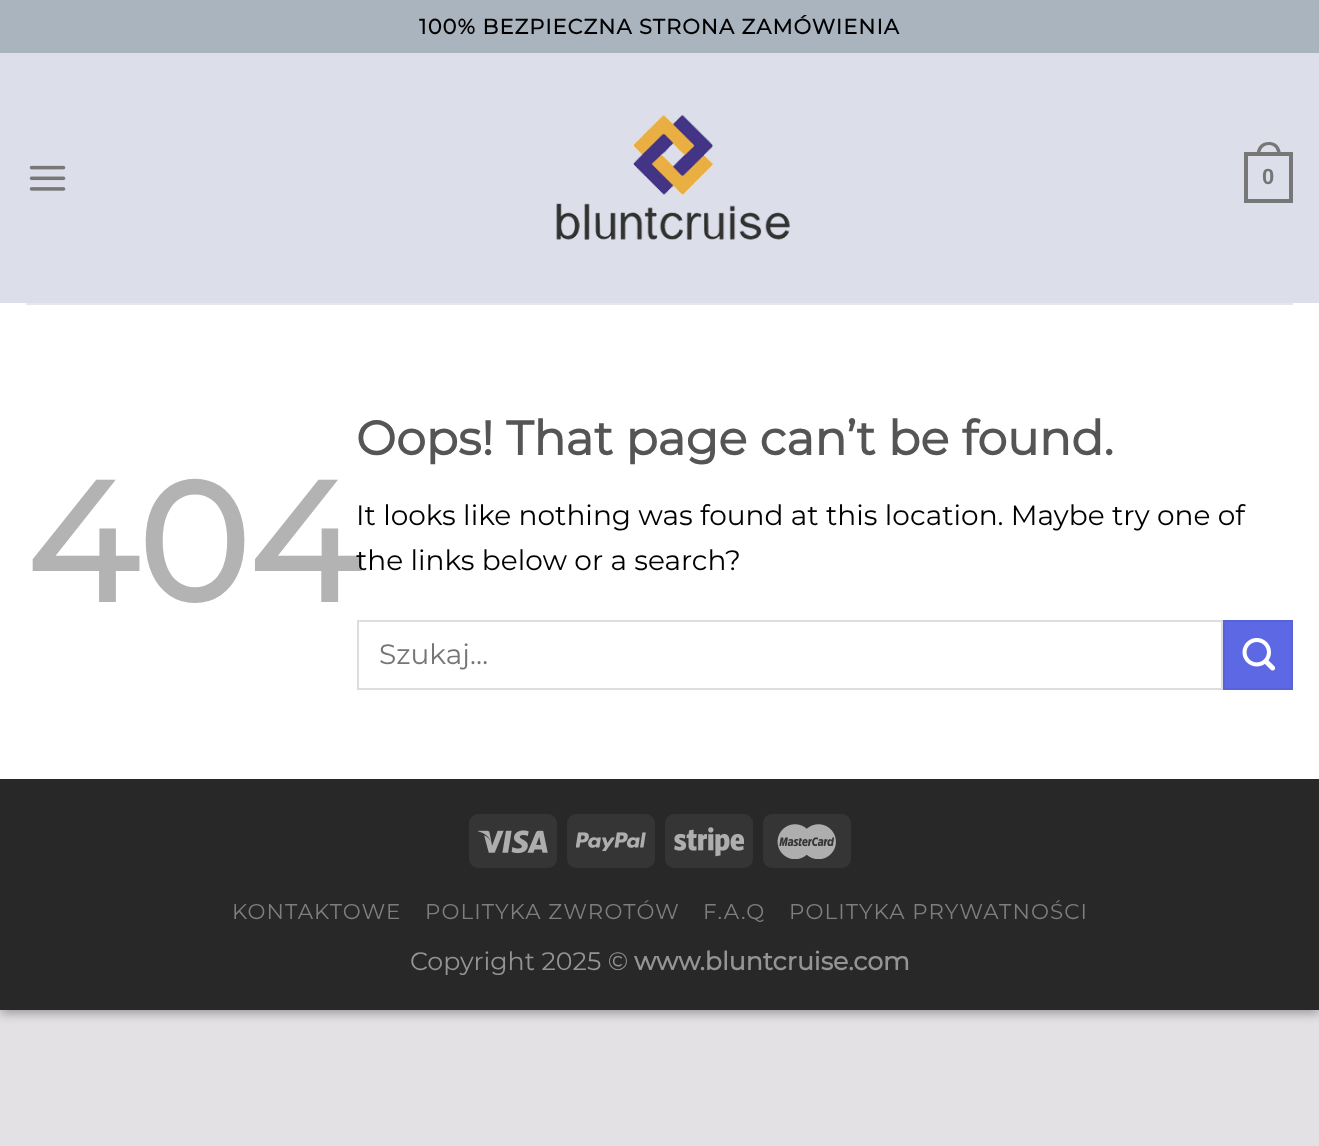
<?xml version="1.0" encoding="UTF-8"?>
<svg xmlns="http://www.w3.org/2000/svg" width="1319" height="1146">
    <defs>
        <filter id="blur1" x="-50%" y="-200%" width="200%" height="500%"><feGaussianBlur stdDeviation="5"/></filter>
    </defs>
    <rect width="100%" height="100%" fill="#E4E1E4"/>
    <rect x="0" y="5" width="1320" height="1010" fill="#000000" fill-opacity="0.23" filter="url(#blur1)"/>
    <rect x="7" y="12" width="1306" height="996" fill="#000000" fill-opacity="0.16" filter="url(#blur1)"/>
    <rect x="0" y="303" width="1319" height="476" fill="#FFFFFF"/>
    <rect x="0" y="0" width="1319" height="53" fill="#AAB4BF"/>
    <text x="419" y="34" font-family="Montserrat" font-size="21" font-weight="700" letter-spacing="1.05" fill="#000000">100% BEZPIECZNA STRONA ZAMÓWIENIA</text>
    <rect x="0" y="53" width="1319" height="250" fill="#DCDFEA"/>
    <image x="29" y="165" width="37" height="26" href="img_01.png"/>
    <image x="556" y="114" width="235" height="126" href="img_02.png"/>
    <rect x="1246" y="154" width="45" height="47" fill="none" stroke="#777777" stroke-width="4"/>
    <path d="M 1269 142 C 1277 142 1281 148 1281 156 H 1256.5 C 1256.5 148 1260.5 142 1269 142 Z M 1269 145 C 1275 145 1277.5 150 1277.5 156 H 1260 C 1260 150 1262.5 145 1269 145 Z" fill="#777777" fill-rule="evenodd"/>
    <text x="1262" y="184" font-family="Liberation Sans" font-size="22" font-weight="700" fill="#757575">0</text>
    <rect x="26" y="303" width="1267" height="2" fill="#E6E6E6"/>
    <text x="26" y="602" font-family="Montserrat" font-size="168" font-weight="700" fill="#B3B3B3">404</text>
    <text x="356" y="455" font-family="Montserrat" font-size="47.6" font-weight="700" fill="#555555">Oops! That page can’t be found.</text>
    <text font-family="Montserrat" font-size="28" fill="#000000">
        <tspan x="356" y="525">It looks like nothing was found at this location. Maybe try one of</tspan>
        <tspan x="356" y="570">the links below or a search?</tspan>
    </text>
    <rect x="358" y="621" width="864" height="68" fill="none" stroke="#DDDDDD" stroke-width="2"/>
    <text x="379" y="664" font-family="Montserrat" font-size="28" fill="#757575">Szukaj…</text>
    <rect x="1224" y="621" width="68" height="68" fill="#5C68E4" stroke="#5763D9" stroke-width="2"/>
    <image x="1242" y="637" width="33" height="34" href="img_03.png"/>
    <rect x="0" y="779" width="1319" height="231" fill="#282828"/>
    <rect x="469" y="814" width="88" height="54" rx="9" fill="#353535"/>
    <image x="478" y="830" width="70" height="24" href="img_04.png"/>
    <rect x="567" y="814" width="88" height="54" rx="9" fill="#353535"/>
    <image x="576" y="832" width="70" height="20" href="img_05.png"/>
    <rect x="665" y="814" width="88" height="54" rx="9" fill="#353535"/>
    <image x="674" y="827" width="70" height="30" href="img_06.png"/>
    <rect x="763" y="814" width="88" height="54" rx="9" fill="#353535"/>
    <image x="777" y="824" width="59" height="35" href="img_07.png"/>
    <text x="232" y="919" font-family="Montserrat" font-size="21.4" letter-spacing="1.1" fill="#7E7E7E">KONTAKTOWE</text>
    <text x="425" y="919" font-family="Montserrat" font-size="21.4" letter-spacing="1.1" fill="#7E7E7E">POLITYKA ZWROTÓW</text>
    <text x="703" y="919" font-family="Montserrat" font-size="21.4" letter-spacing="1.1" fill="#7E7E7E">F.A.Q</text>
    <text x="789" y="919" font-family="Montserrat" font-size="21.4" letter-spacing="1.1" fill="#7E7E7E">POLITYKA PRYWATNOŚCI</text>
    <text x="410" y="970" font-family="Montserrat" font-size="25.25" fill="#949494">Copyright 2025 ©</text>
    <text x="634" y="970" font-family="Montserrat" font-size="25.25" font-weight="700" fill="#949494">www.bluntcruise.com</text>
</svg>
